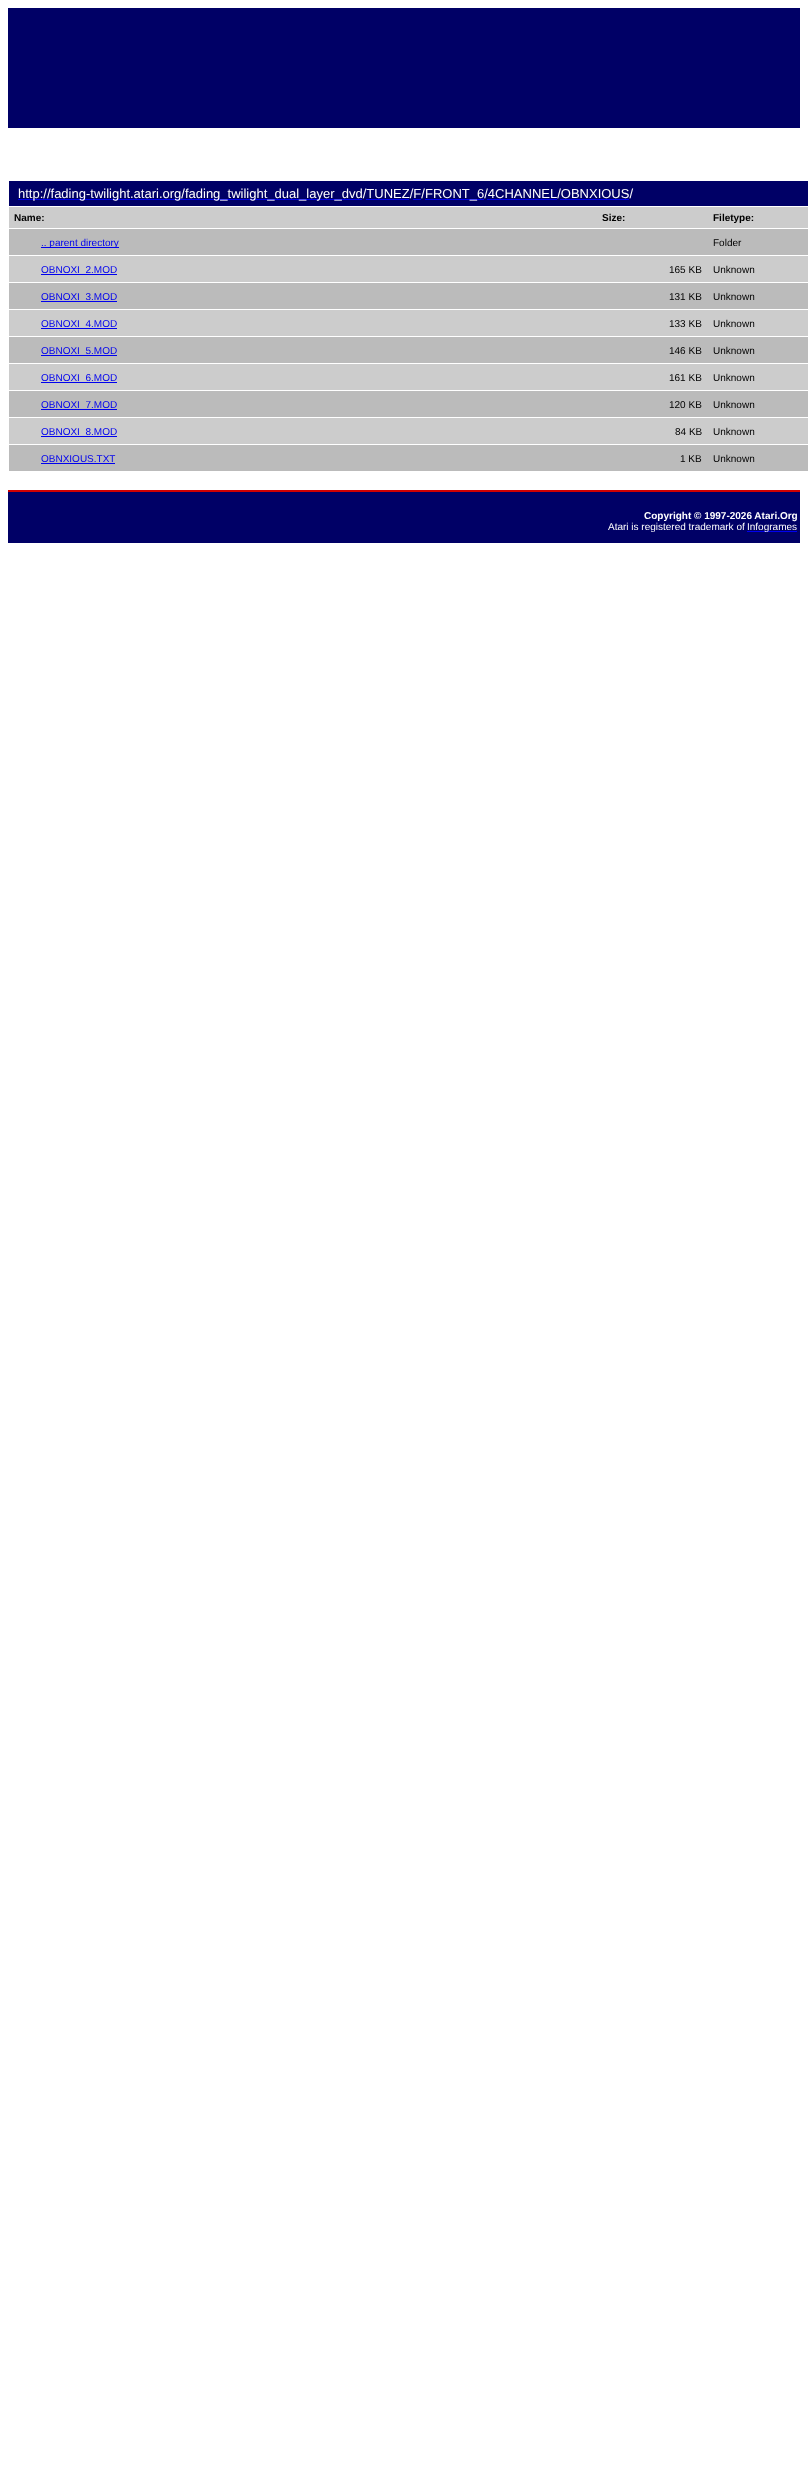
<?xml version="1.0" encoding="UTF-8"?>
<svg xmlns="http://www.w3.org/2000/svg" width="808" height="2466">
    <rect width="100%" height="100%" fill="#FFFFFF"/>
    <rect x="8" y="8" width="185" height="120" fill="#000066"/>
    <rect x="193" y="8" width="607" height="72" fill="#000066"/>
    <rect x="193" y="80" width="607" height="48" fill="#000066"/>
    <rect x="9" y="181" width="799" height="25" fill="#000066"/>
    <rect x="18" y="199" width="344" height="1" fill="#0000EE"/>
    <text x="18" y="198" font-family="Liberation Sans" font-size="13" fill="#FFFFFF">http://fading-twilight.atari.org/fading_twilight_dual_layer_dvd/TUNEZ/F/</text>
    <rect x="366" y="199" width="43" height="1" fill="#0000EE"/>
    <rect x="413" y="199" width="8" height="1" fill="#0000EE"/>
    <rect x="425" y="199" width="59" height="1" fill="#0000EE"/>
    <text x="425" y="198" font-family="Liberation Sans" font-size="13" fill="#FFFFFF">FRONT_6/4CHANNEL/OBNXIOUS/</text>
    <rect x="487" y="199" width="70" height="1" fill="#0000EE"/>
    <rect x="560" y="199" width="69" height="1" fill="#0000EE"/>
    <rect x="9" y="207" width="799" height="21" fill="#CCCCCC"/>
    <text x="14" y="221" font-family="Liberation Sans" font-size="10" font-weight="700" fill="#000000">Name:</text>
    <text x="602" y="221" font-family="Liberation Sans" font-size="10" font-weight="700" fill="#000000">Size:</text>
    <text x="713" y="221" font-family="Liberation Sans" font-size="10" font-weight="700" fill="#000000">Filetype:</text>
    <rect x="9" y="229" width="799" height="26" fill="#BBBBBB"/>
    <rect x="41" y="247" width="78" height="1" fill="#0000EE"/>
    <text x="41" y="246" font-family="Liberation Sans" font-size="10" fill="#0000EE">.. parent directory</text>
    <text x="713" y="246" font-family="Liberation Sans" font-size="10" fill="#000000">Folder</text>
    <rect x="9" y="256" width="799" height="26" fill="#CCCCCC"/>
    <rect x="41" y="274" width="76" height="1" fill="#0000EE"/>
    <text x="41" y="273" font-family="Liberation Sans" font-size="10" fill="#0000EE">OBNOXI_2.MOD</text>
    <text x="669" y="273" font-family="Liberation Sans" font-size="10" fill="#000000">165 KB</text>
    <text x="713" y="273" font-family="Liberation Sans" font-size="10" fill="#000000">Unknown</text>
    <rect x="9" y="283" width="799" height="26" fill="#BBBBBB"/>
    <rect x="41" y="301" width="76" height="1" fill="#0000EE"/>
    <text x="41" y="300" font-family="Liberation Sans" font-size="10" fill="#0000EE">OBNOXI_3.MOD</text>
    <text x="669" y="300" font-family="Liberation Sans" font-size="10" fill="#000000">131 KB</text>
    <text x="713" y="300" font-family="Liberation Sans" font-size="10" fill="#000000">Unknown</text>
    <rect x="9" y="310" width="799" height="26" fill="#CCCCCC"/>
    <rect x="41" y="328" width="76" height="1" fill="#0000EE"/>
    <text x="41" y="327" font-family="Liberation Sans" font-size="10" fill="#0000EE">OBNOXI_4.MOD</text>
    <text x="669" y="327" font-family="Liberation Sans" font-size="10" fill="#000000">133 KB</text>
    <text x="713" y="327" font-family="Liberation Sans" font-size="10" fill="#000000">Unknown</text>
    <rect x="9" y="337" width="799" height="26" fill="#BBBBBB"/>
    <rect x="41" y="355" width="76" height="1" fill="#0000EE"/>
    <text x="41" y="354" font-family="Liberation Sans" font-size="10" fill="#0000EE">OBNOXI_5.MOD</text>
    <text x="669" y="354" font-family="Liberation Sans" font-size="10" fill="#000000">146 KB</text>
    <text x="713" y="354" font-family="Liberation Sans" font-size="10" fill="#000000">Unknown</text>
    <rect x="9" y="364" width="799" height="26" fill="#CCCCCC"/>
    <rect x="41" y="382" width="76" height="1" fill="#0000EE"/>
    <text x="41" y="381" font-family="Liberation Sans" font-size="10" fill="#0000EE">OBNOXI_6.MOD</text>
    <text x="669" y="381" font-family="Liberation Sans" font-size="10" fill="#000000">161 KB</text>
    <text x="713" y="381" font-family="Liberation Sans" font-size="10" fill="#000000">Unknown</text>
    <rect x="9" y="391" width="799" height="26" fill="#BBBBBB"/>
    <rect x="41" y="409" width="76" height="1" fill="#0000EE"/>
    <text x="41" y="408" font-family="Liberation Sans" font-size="10" fill="#0000EE">OBNOXI_7.MOD</text>
    <text x="669" y="408" font-family="Liberation Sans" font-size="10" fill="#000000">120 KB</text>
    <text x="713" y="408" font-family="Liberation Sans" font-size="10" fill="#000000">Unknown</text>
    <rect x="9" y="418" width="799" height="26" fill="#CCCCCC"/>
    <rect x="41" y="436" width="76" height="1" fill="#0000EE"/>
    <text x="41" y="435" font-family="Liberation Sans" font-size="10" fill="#0000EE">OBNOXI_8.MOD</text>
    <text x="675" y="435" font-family="Liberation Sans" font-size="10" fill="#000000">84 KB</text>
    <text x="713" y="435" font-family="Liberation Sans" font-size="10" fill="#000000">Unknown</text>
    <rect x="9" y="445" width="799" height="26" fill="#BBBBBB"/>
    <text x="41" y="462" font-family="Liberation Sans" font-size="10" fill="#0000EE">OBNXIOUS.TXT</text>
    <rect x="41" y="463" width="74" height="1" fill="#0000EE"/>
    <text x="680" y="462" font-family="Liberation Sans" font-size="10" fill="#000000">1 KB</text>
    <text x="713" y="462" font-family="Liberation Sans" font-size="10" fill="#000000">Unknown</text>
    <rect x="8" y="490" width="792" height="2" fill="#D00000"/>
    <rect x="8" y="492" width="792" height="51" fill="#000066"/>
    <text x="644" y="519" font-family="Liberation Sans" font-size="10" font-weight="700" fill="#FFFFFF">Copyright © 1997-2026 Atari.Org</text>
    <text x="608" y="530" font-family="Liberation Sans" font-size="10" fill="#FFFFFF">Atari is registered trademark of</text>
    <rect x="747" y="531" width="50" height="1" fill="#0000EE"/>
    <text x="747" y="530" font-family="Liberation Sans" font-size="10" fill="#FFFFFF">Infogrames</text>
</svg>
